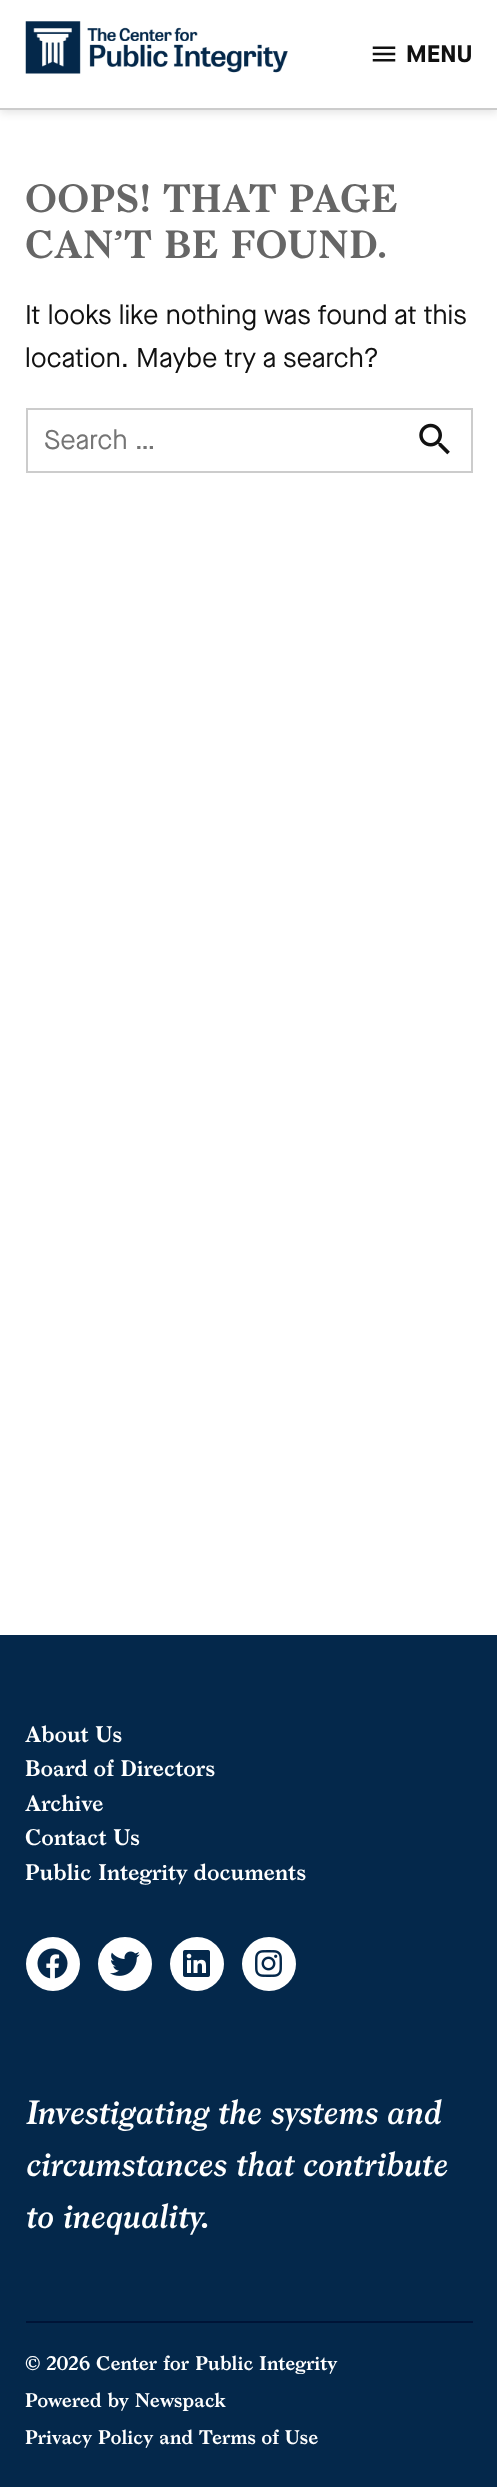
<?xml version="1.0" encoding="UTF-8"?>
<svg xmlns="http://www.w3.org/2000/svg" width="497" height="2487">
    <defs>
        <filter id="blur1" x="-50%" y="-200%" width="200%" height="500%"><feGaussianBlur stdDeviation="4"/></filter>
    </defs>
    <rect width="100%" height="100%" fill="#FFFFFF"/>
    <rect x="0" y="3" width="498" height="110" fill="#000000" fill-opacity="0.1" filter="url(#blur1)"/>
    <rect x="0" y="0" width="497" height="108" fill="#FFFFFF"/>
    <rect x="0" y="108" width="497" height="2" fill="#CCCCCC"/>
    <image x="25" y="21" width="263" height="53" href="img_01.png"/>
    <image x="372" y="46" width="24" height="16" href="img_02.png"/>
    <text x="406" y="62" font-family="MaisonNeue" font-size="24" font-weight="700" fill="#111111">MENU</text>
    <text font-family="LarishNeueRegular" font-size="37.75" letter-spacing="0.4" fill="#666666">
        <tspan x="25" y="212">OOPS! THAT PAGE</tspan>
        <tspan x="25" y="258">CAN’T BE FOUND.</tspan>
    </text>
    <text font-family="MaisonNeue" font-size="27" fill="#111111">
        <tspan x="25" y="324">It looks like nothing was found at this</tspan>
        <tspan x="25" y="367">location. Maybe try a search?</tspan>
    </text>
    <rect x="27" y="409" width="445" height="63" fill="none" stroke="#CCCCCC" stroke-width="2"/>
    <text x="44" y="449" font-family="MaisonNeue" font-size="27" fill="#757575">Search …</text>
    <image x="419" y="423" width="31" height="32" href="img_03.png"/>
    <rect x="0" y="1635" width="497" height="852" fill="#04284B"/>
    <text font-family="LarishNeueRegular" font-size="21.6" fill="#FFFFFF">
        <tspan x="25" y="1742">About Us</tspan>
        <tspan x="25" y="1776">Board of Directors</tspan>
        <tspan x="25" y="1811">Archive</tspan>
        <tspan x="25" y="1845">Contact Us</tspan>
        <tspan x="25" y="1880">Public Integrity documents</tspan>
    </text>
    <circle cx="53" cy="1964" r="27" fill="#FFFFFF"/>
    <image x="37" y="1948" width="31" height="31" href="img_04.png"/>
    <circle cx="125" cy="1964" r="27" fill="#FFFFFF"/>
    <image x="110" y="1951" width="30" height="25" href="img_05.png"/>
    <circle cx="197" cy="1964" r="27" fill="#FFFFFF"/>
    <image x="183" y="1950" width="27" height="27" href="img_06.png"/>
    <circle cx="269" cy="1964" r="27" fill="#FFFFFF"/>
    <image x="255" y="1950" width="27" height="27" href="img_07.png"/>
    <text font-family="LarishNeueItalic" font-size="32.4" font-weight="600" font-style="italic" fill="#FFFFFF">
        <tspan x="25" y="2124">Investigating the systems and</tspan>
        <tspan x="25" y="2176">circumstances that contribute</tspan>
        <tspan x="25" y="2228">to inequality.</tspan>
    </text>
    <rect x="26" y="2321" width="447" height="2" fill="#001437"/>
    <text font-family="LarishNeueRegular" font-size="18.9" fill="#FFFFFF">
        <tspan x="25" y="2370">© 2026 Center for Public Integrity</tspan>
        <tspan x="25" y="2407">Powered by Newspack</tspan>
        <tspan x="25" y="2444">Privacy Policy and Terms of Use</tspan>
    </text>
</svg>
